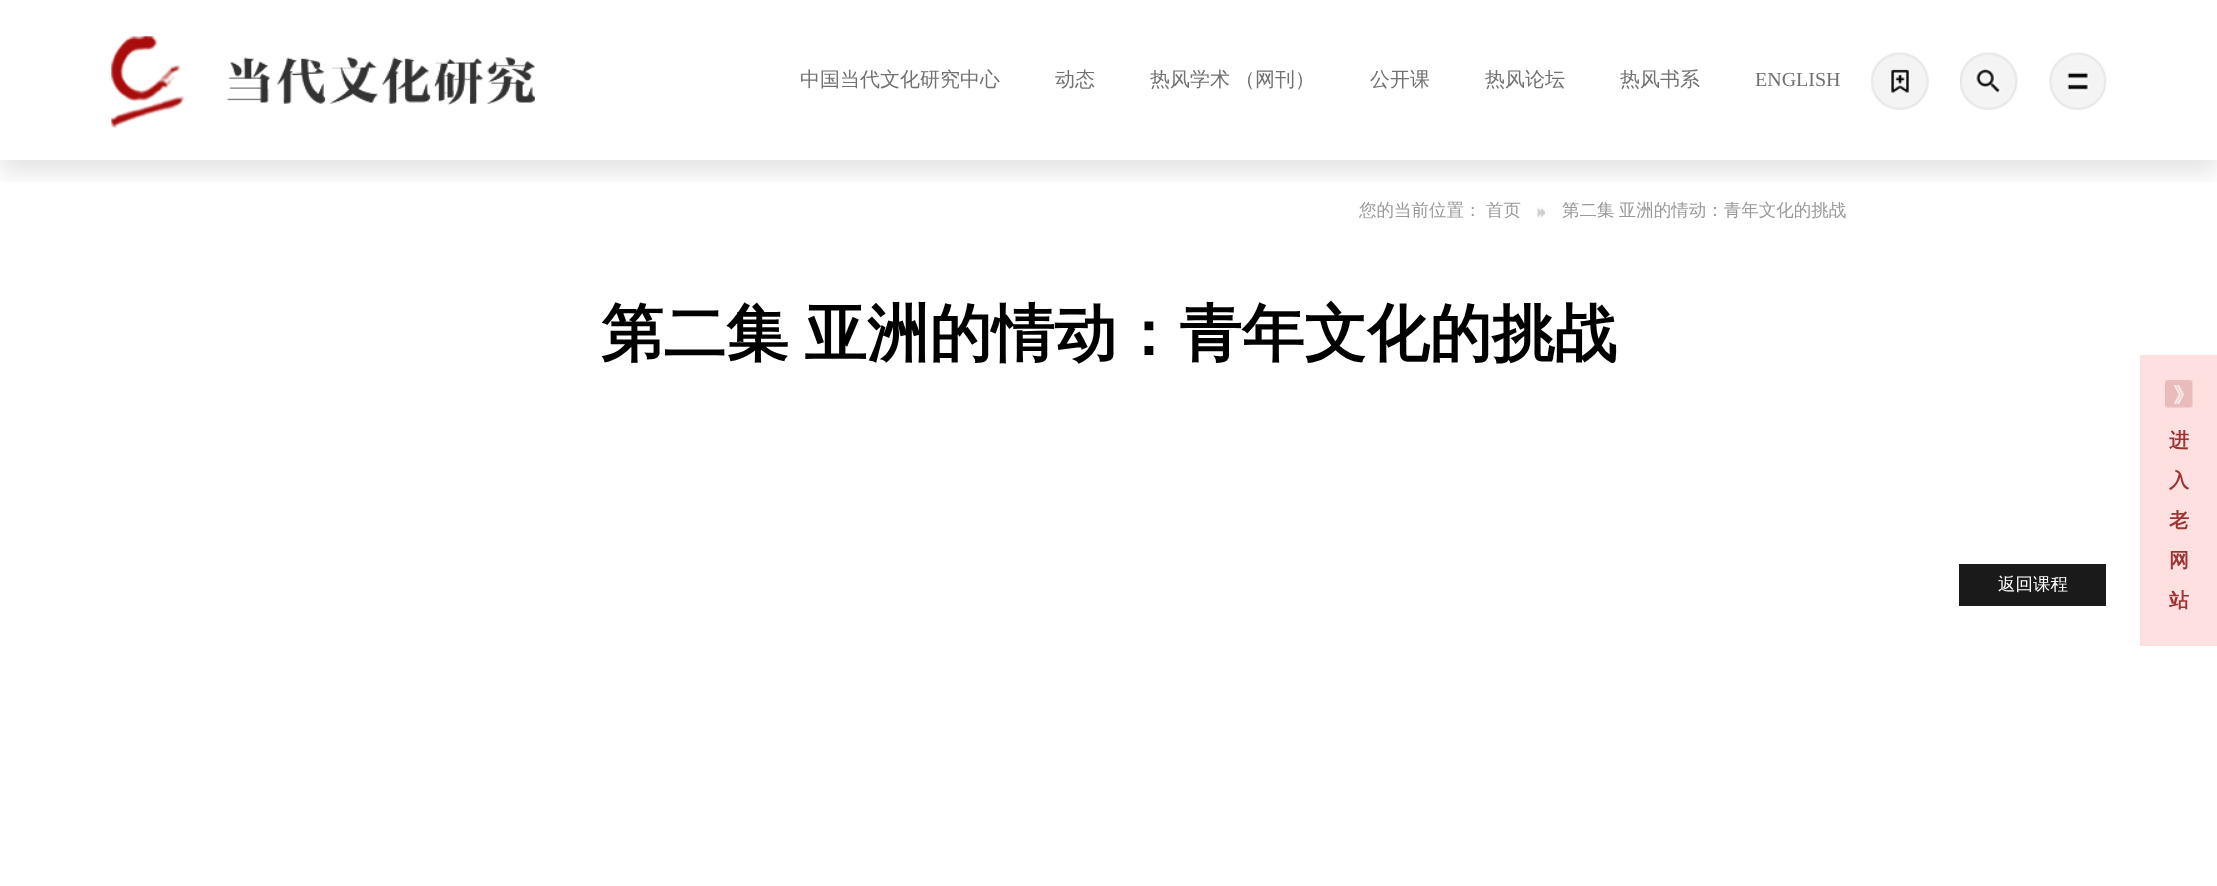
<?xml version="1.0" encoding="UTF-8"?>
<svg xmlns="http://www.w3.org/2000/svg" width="2217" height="886">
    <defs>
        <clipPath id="clip1"><rect x="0" y="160" width="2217" height="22"/></clipPath>
        <filter id="blur1" x="-50%" y="-200%" width="200%" height="500%"><feGaussianBlur stdDeviation="11"/></filter>
    </defs>
    <rect width="100%" height="100%" fill="#FFFFFF"/>
    <g clip-path="url(#clip1)">
        <rect x="0" y="13" width="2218" height="160" fill="#010101" fill-opacity="0.1" filter="url(#blur1)"/>
    </g>
    <image x="111" y="36" width="424" height="92" href="img_01.png"/>
    <text x="800" y="86" font-family="WenQuanYi Zen Hei" font-size="20" font-weight="500" fill="#707271">中国当代文化研究中心</text>
    <text x="1055" y="86" font-family="WenQuanYi Zen Hei" font-size="20" font-weight="500" fill="#707271">动态</text>
    <text x="1150" y="86" font-family="WenQuanYi Zen Hei" font-size="20" font-weight="500" fill="#707271">热风学术</text>
    <text x="1235" y="86" font-family="WenQuanYi Zen Hei" font-size="20" font-weight="500" fill="#707271">（网刊）</text>
    <text x="1370" y="86" font-family="WenQuanYi Zen Hei" font-size="20" font-weight="500" fill="#707271">公开课</text>
    <text x="1485" y="86" font-family="WenQuanYi Zen Hei" font-size="20" font-weight="500" fill="#707271">热风论坛</text>
    <text x="1620" y="86" font-family="WenQuanYi Zen Hei" font-size="20" font-weight="500" fill="#707271">热风书系</text>
    <text x="1755" y="86" font-family="Liberation Serif" font-size="20" fill="#707271">ENGLISH</text>
    <image x="1871" y="52" width="58" height="58" href="img_02.png"/>
    <image x="1960" y="52" width="58" height="58" href="img_03.png"/>
    <image x="2049" y="52" width="58" height="58" href="img_04.png"/>
    <text x="1359" y="216" font-family="WenQuanYi Zen Hei" font-size="17.5" font-weight="500" fill="#999999">您的当前位置：</text>
    <text x="1486" y="216" font-family="WenQuanYi Zen Hei" font-size="17.5" font-weight="500" fill="#999999">首页</text>
    <image x="1537" y="207" width="8" height="11" href="img_05.png"/>
    <text x="1562" y="216" word-spacing="-1" font-family="WenQuanYi Zen Hei" font-size="17.5" font-weight="500" fill="#999999">第二集 亚洲的情动：青年文化的挑战</text>
    <text x="601" y="355" word-spacing="-3" font-family="WenQuanYi Zen Hei" font-size="62.5" font-weight="700" fill="#000000">第二集 亚洲的情动：青年文化的挑战</text>
    <rect x="1959" y="564" width="147" height="42" fill="#1A1A1A"/>
    <text x="1998" y="590" font-family="WenQuanYi Zen Hei" font-size="17.5" font-weight="500" fill="#FFFFFF">返回课程</text>
    <rect x="2140" y="355" width="77" height="291" fill="#FFE0E0"/>
    <image x="2165" y="380" width="28" height="28" href="img_06.png"/>
    <text x="2169" y="447" font-family="WenQuanYi Zen Hei" font-size="20" font-weight="700" fill="#9D3434">进</text>
    <text x="2169" y="487" font-family="WenQuanYi Zen Hei" font-size="20" font-weight="700" fill="#9D3434">入</text>
    <text x="2169" y="527" font-family="WenQuanYi Zen Hei" font-size="20" font-weight="700" fill="#9D3434">老</text>
    <text x="2169" y="567" font-family="WenQuanYi Zen Hei" font-size="20" font-weight="700" fill="#9D3434">网</text>
    <text x="2169" y="607" font-family="WenQuanYi Zen Hei" font-size="20" font-weight="700" fill="#9D3434">站</text>
</svg>
